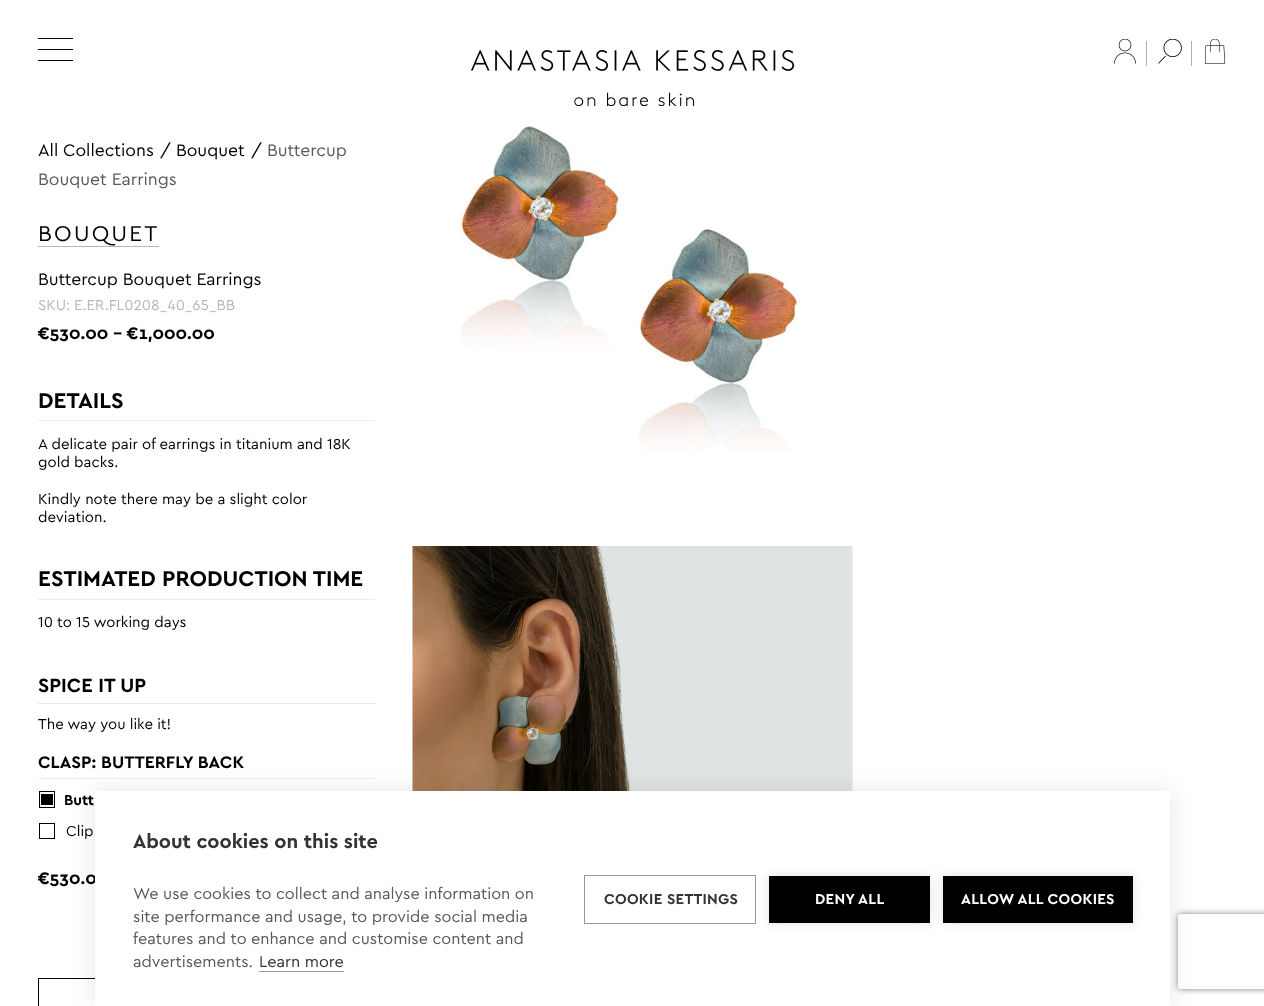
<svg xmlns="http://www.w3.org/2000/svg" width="1264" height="1006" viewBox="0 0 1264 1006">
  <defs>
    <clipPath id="clip1"><path d="M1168 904H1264V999H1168ZM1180.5 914H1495.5C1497 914 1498 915 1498 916.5V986.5C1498 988 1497 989 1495.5 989H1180.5C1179 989 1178 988 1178 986.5V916.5C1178 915 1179 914 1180.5 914Z" clip-rule="evenodd"/></clipPath>
  </defs>
  <rect width="100%" height="100%" fill="rgb(255,255,255)"/>
  <rect x="38" y="49" width="35" height="1" fill="rgb(0,0,0)"/>
  <rect x="38" y="38" width="35" height="1" fill="rgb(0,0,0)"/>
  <rect x="38" y="60" width="35" height="1" fill="rgb(0,0,0)"/>
  <image x="1114" y="39" width="22" height="25" href="pic1.png"/>
  <rect x="1146" y="41" width="1" height="25" fill="rgb(175,175,175)"/>
  <image x="1158" y="39" width="24" height="25" href="pic2.png"/>
  <rect x="1191" y="41" width="1" height="25" fill="rgb(175,175,175)"/>
  <image x="1204" y="39" width="22" height="25" href="pic3.png"/>
  <image x="471" y="50" width="324" height="56" href="pic4.png"/>
  <g font-family="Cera" font-size="17.5" fill="rgb(0,0,0)">
    <text x="38" y="156">All Collections</text>
    <text x="160" y="156">/ Bouquet</text>
    <text x="251" y="156">/</text>
  </g>
  <g font-family="Cera" font-size="17.5" fill="rgb(89,89,89)">
    <text x="267" y="156">Buttercup</text>
    <text x="38" y="185">Bouquet Earrings</text>
  </g>
  <text x="38" y="241" font-family="Cera" font-size="22.5" letter-spacing="2.25" fill="rgb(0,0,0)">BOUQUET</text>
  <rect x="38" y="246" width="121" height="1" fill="rgb(183,183,183)"/>
  <text x="38" y="285" font-family="Cera" font-size="17.5" fill="rgb(0,0,0)">Buttercup Bouquet Earrings</text>
  <text x="38" y="310" font-family="Cera" font-size="15" fill="rgb(183,183,183)">SKU:</text>
  <text x="74" y="310" font-family="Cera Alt" font-size="15" fill="rgb(183,183,183)">E.ER.FL0208_40_65_BB</text>
  <text x="38" y="339" font-family="'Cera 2'" font-size="17.5" fill="rgb(0,0,0)">€530.00 – €1,000.00</text>
  <rect x="38" y="420" width="337" height="1" fill="rgb(237,237,237)"/>
  <text x="38" y="408" font-family="'Cera 2'" font-size="22.5" fill="rgb(0,0,0)">DETAILS</text>
  <text x="38" y="449" font-family="Cera Alt" font-size="15" fill="rgb(0,0,0)">A delicate pair of earrings in titanium and 18K</text>
  <g font-family="Cera" font-size="15" fill="rgb(0,0,0)">
    <text x="38" y="467">gold backs.</text>
    <text>
      <tspan x="38" y="504">Kindly note there may be a slight color</tspan>
      <tspan x="38" y="522">deviation.</tspan>
    </text>
  </g>
  <rect x="38" y="599" width="337" height="1" fill="rgb(237,237,237)"/>
  <text x="38" y="586" font-family="'Cera 2'" font-size="22.5" fill="rgb(0,0,0)">ESTIMATED PRODUCTION TIME</text>
  <text x="38" y="627" font-family="Cera Alt" font-size="15" fill="rgb(0,0,0)">10 to 15 working days</text>
  <rect x="38" y="703" width="337" height="1" fill="rgb(230,230,230)"/>
  <text x="38" y="692" font-family="'Cera 2'" font-size="20" fill="rgb(0,0,0)">SPICE IT UP</text>
  <text x="38" y="729" font-family="Cera" font-size="15" fill="rgb(0,0,0)">The way you like it!</text>
  <rect x="38" y="778" width="337" height="1" fill="rgb(237,237,237)"/>
  <text x="38" y="768" font-family="'Cera 2'" font-size="17.5" fill="rgb(0,0,0)">CLASP: BUTTERFLY BACK</text>
  <rect x="39.5" y="791.5" width="15" height="16" fill="none" stroke="rgb(0,0,0)"/>
  <rect x="41" y="794" width="12" height="11" fill="rgb(0,0,0)"/>
  <text x="64" y="805" font-family="'Cera 2'" font-size="15" fill="rgb(0,0,0)">Butt</text>
  <rect x="39.5" y="823.5" width="15" height="15" fill="none" stroke="rgb(0,0,0)"/>
  <text x="66" y="836" font-family="Cera" font-size="15" fill="rgb(0,0,0)">Clip</text>
  <text x="38" y="884" font-family="'Cera 2'" font-size="17.5" fill="rgb(0,0,0)">€530.0</text>
  <rect x="38.5" y="978.5" width="336" height="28" fill="none" stroke="rgb(0,0,0)"/>
  <image x="459" y="124" width="342" height="327" href="pic5.png"/>
  <image x="412" y="546" width="441" height="245" href="pic6.png"/>
  <rect x="95" y="791" width="1075" height="215" fill="rgba(0,0,0,0.1)" filter="blur(12.5px)"/>
  <g clip-path="url(#clip1)">
    <rect x="1178" y="914" width="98" height="75" rx="2.5" fill="rgb(128,128,128)" filter="blur(3px)"/>
  </g>
  <rect x="95" y="791" width="1075" height="215" fill="rgb(255,255,255)"/>
  <text x="133" y="848" font-family="'Cera 2'" font-size="20" fill="rgb(51,51,51)">About cookies on this site</text>
  <g font-family="Cera" font-size="16.25" fill="rgb(89,89,89)">
    <text>
      <tspan x="133" y="899">We use cookies to collect and analyse information on</tspan>
      <tspan x="133" y="922">site performance and usage, to provide social media</tspan>
      <tspan x="133" y="944">features and to enhance and customise content and</tspan>
      <tspan x="133" y="967">advertisements.</tspan>
    </text>
  </g>
  <text x="259" y="967" font-family="Cera" font-size="16.25" fill="rgb(51,51,51)">Learn more</text>
  <rect x="259" y="971" width="85" height="1" fill="rgb(153,153,153)"/>
  <rect x="584.5" y="875.5" width="171" height="48" fill="none" stroke="rgb(153,153,153)"/>
  <text x="604" y="904" font-family="'Cera 2'" font-size="15" letter-spacing="0.25" fill="rgb(51,51,51)">COOKIE SETTINGS</text>
  <rect x="769" y="876" width="161" height="47" fill="rgba(0,0,0,0.12)" filter="blur(6px)"/>
  <rect x="769" y="876" width="161" height="47" fill="rgb(0,0,0)"/>
  <text x="815" y="904" font-family="'Cera 2'" font-size="15" letter-spacing="0.25" fill="rgb(255,255,255)">DENY ALL</text>
  <rect x="943" y="876" width="190" height="47" fill="rgba(0,0,0,0.12)" filter="blur(6px)"/>
  <rect x="943" y="876" width="190" height="47" fill="rgb(0,0,0)"/>
  <text x="961" y="904" font-family="'Cera 2'" font-size="15" letter-spacing="0.25" fill="rgb(255,255,255)">ALLOW ALL COOKIES</text>
</svg>
